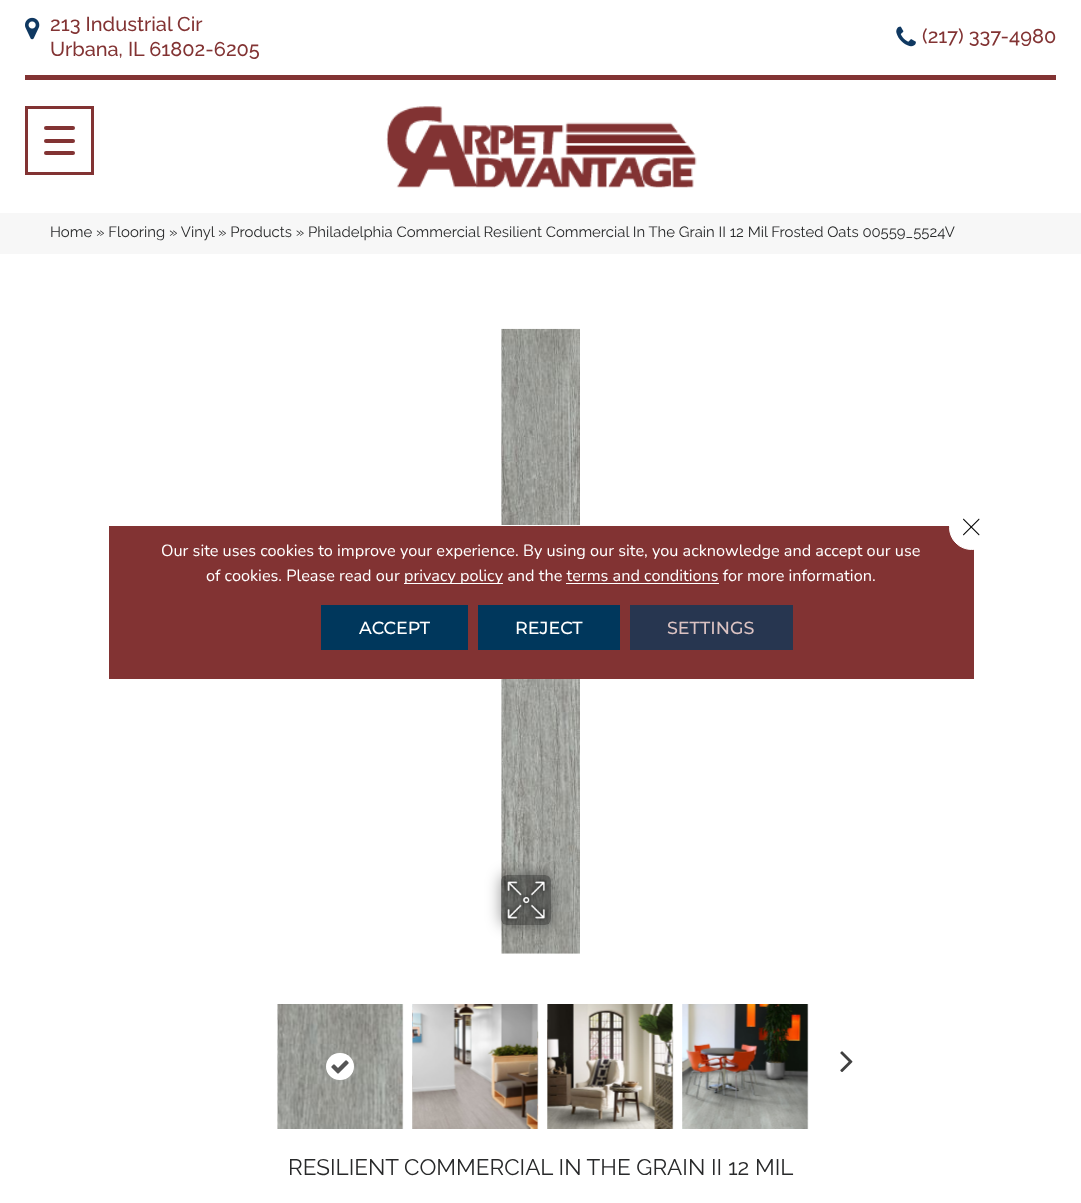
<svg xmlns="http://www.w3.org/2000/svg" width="1081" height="1203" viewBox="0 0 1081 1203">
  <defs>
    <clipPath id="clip1"><path d="M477 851H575V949H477ZM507 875H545C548.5 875 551 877.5 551 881V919C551 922.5 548.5 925 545 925H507C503.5 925 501 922.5 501 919V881C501 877.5 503.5 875 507 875Z" clip-rule="evenodd"/></clipPath>
  </defs>
  <rect width="100%" height="100%" fill="rgb(255,255,255)"/>
  <rect x="25" y="75" width="1031" height="5" fill="rgb(130,51,51)"/>
  <image x="25" y="17" width="15" height="23" href="pic1.png"/>
  <g font-family="Raleway" font-size="20" font-weight="500" fill="rgb(130,51,51)">
    <text>
      <tspan x="50" y="31">213 Industrial Cir</tspan>
      <tspan x="50" y="56">Urbana, IL 61802-6205</tspan>
    </text>
  </g>
  <image x="896" y="26" width="20" height="21" href="pic2.png"/>
  <text x="922" y="43" font-family="Raleway" font-size="20" font-weight="500" fill="rgb(130,51,51)">(217) 337-4980</text>
  <image x="386" y="106" width="311" height="82" href="pic3.png"/>
  <rect x="0" y="213" width="1081" height="41" fill="rgb(247,247,247)"/>
  <g font-family="Raleway" font-size="14.9" fill="rgb(40,41,42)">
    <text x="50" y="237">Home » Flooring » Vinyl</text>
    <text x="218" y="237">» Products » Philadelphia Commercial Resilient Commercial In The Grain II 12 Mil Frosted Oats 00559_5524V</text>
  </g>
  <image x="501" y="328" width="79" height="626" href="pic4.png"/>
  <g clip-path="url(#clip1)">
    <rect x="501" y="875" width="50" height="50" rx="6" fill="rgba(0,0,0,0.41)" filter="blur(7.5px)"/>
  </g>
  <rect x="501" y="875" width="50" height="50" rx="6" fill="rgba(0,0,0,0.4)"/>
  <image x="504" y="877" width="45" height="46" href="pic5.png"/>
  <image x="277" y="1004" width="127" height="125" href="pic6.png"/>
  <image x="278" y="1004" width="125" height="125" href="pic7.png"/>
  <rect x="326" y="1053" width="28" height="27" rx="13.5" fill="rgb(255,255,255)"/>
  <image x="331" y="1060" width="18" height="14" href="pic8.png"/>
  <image x="412" y="1004" width="127" height="125" href="pic9.png"/>
  <image x="412" y="1004" width="126" height="125" href="pic10.png"/>
  <image x="547" y="1004" width="127" height="125" href="pic11.png"/>
  <image x="547" y="1004" width="126" height="125" href="pic12.png"/>
  <image x="682" y="1004" width="127" height="125" href="pic13.png"/>
  <image x="682" y="1004" width="126" height="125" href="pic14.png"/>
  <image x="840" y="1051" width="13" height="21" href="pic15.png"/>
  <text x="288" y="1175" font-family="Raleway" font-size="22.5" fill="rgb(40,41,42)">RESILIENT COMMERCIAL IN THE GRAIN II 12 MIL</text>
  <rect x="26.5" y="107.5" width="66" height="66" fill="none" stroke="rgb(130,51,51)" stroke-width="3"/>
  <rect x="44" y="139" width="31" height="4" rx="2" fill="rgb(130,51,51)"/>
  <rect x="44" y="126" width="31" height="4" rx="2" fill="rgb(130,51,51)"/>
  <rect x="44" y="151" width="31" height="4" rx="2" fill="rgb(130,51,51)"/>
  <rect x="109" y="526" width="865" height="153" fill="rgb(130,51,51)"/>
  <rect x="501" y="525" width="79" height="1" fill="rgb(255,255,255)"/>
  <g font-family="Nunito" font-size="16.25" fill="rgb(255,255,255)">
    <text x="161" y="556">Our site uses cookies to improve your experience. By using our site, you acknowledge and accept our use</text>
    <text x="206" y="581">of cookies. Please read our</text>
  </g>
  <rect x="404" y="583" width="99" height="1" fill="rgb(255,255,255)"/>
  <text x="404" y="581" font-family="Nunito" font-size="16.25" fill="rgb(255,255,255)">privacy policy and the terms and conditions for more information.</text>
  <rect x="566" y="583" width="153" height="1" fill="rgb(255,255,255)"/>
  <circle cx="971.5" cy="527.5" r="22" fill="rgb(255,255,255)" stroke="rgb(255,255,255)"/>
  <path d="M979 518.5L979.5 519.5L963.5 535.5L963 534.5Z" fill="rgb(0,0,0)"/>
  <path d="M963 519.5L963.5 518.5L979.5 534.5L979 535.5Z" fill="rgb(0,0,0)"/>
  <rect x="321" y="605" width="147" height="45" fill="rgb(0,55,92)"/>
  <text x="359" y="634" font-family="Montserrat" font-size="17.5" font-weight="500" fill="rgb(255,255,255)">ACCEPT</text>
  <rect x="478" y="605" width="142" height="45" fill="rgb(0,55,92)"/>
  <text x="515" y="634" font-family="Montserrat" font-size="17.5" font-weight="500" fill="rgb(255,255,255)">REJECT</text>
  <rect x="630" y="605" width="163" height="45" fill="rgb(39,54,80)"/>
  <text x="667" y="634" font-family="Montserrat" font-size="17.5" font-weight="500" fill="rgb(218,194,194)">SETTINGS</text>
</svg>
